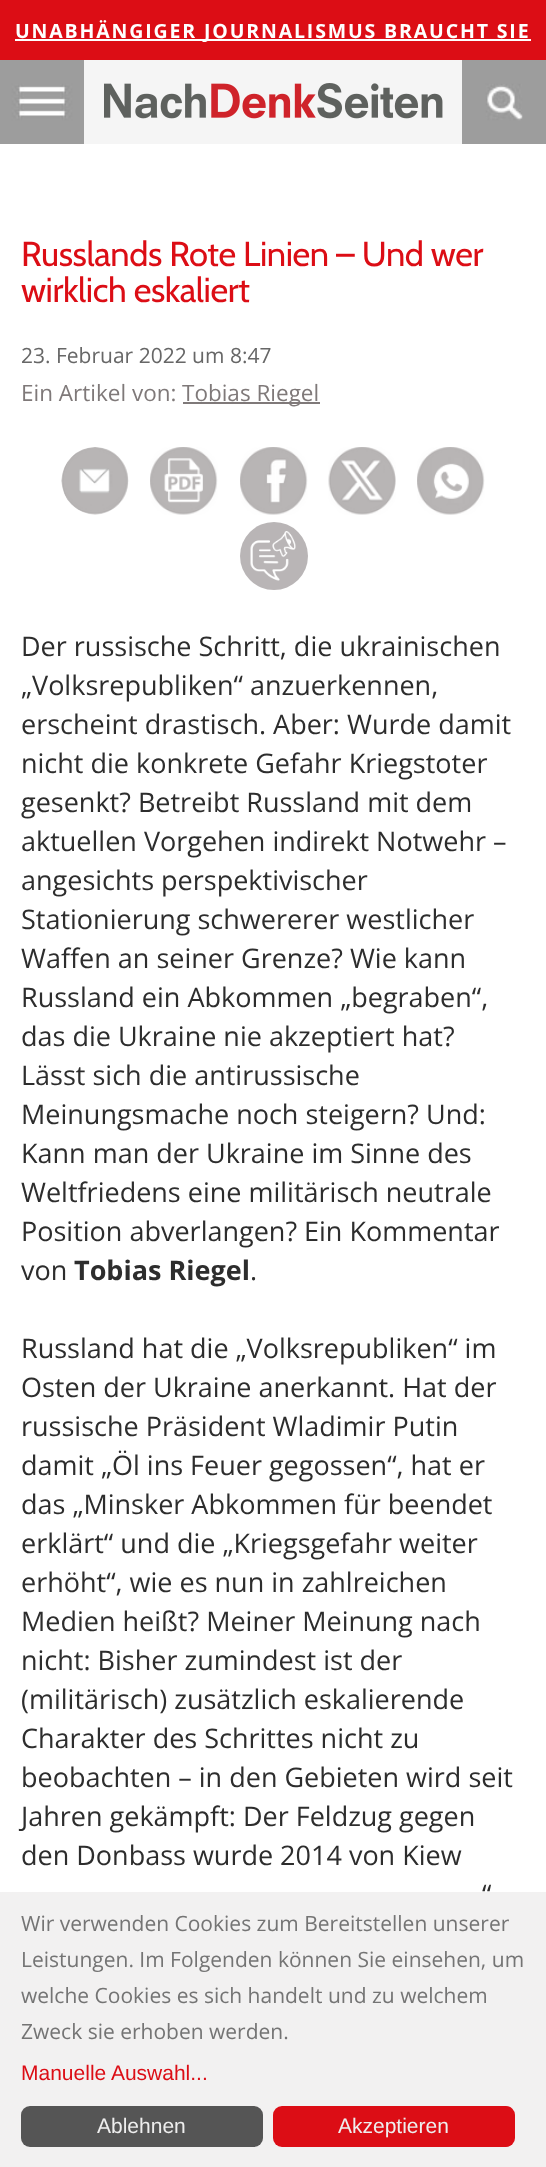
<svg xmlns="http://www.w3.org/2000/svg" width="546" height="2167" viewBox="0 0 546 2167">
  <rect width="100%" height="100%" fill="rgb(255,255,255)"/>
  <rect x="0" y="0" width="546" height="60" fill="rgb(220,13,21)"/>
  <rect x="15" y="39" width="516" height="2" fill="rgb(255,255,255)"/>
  <text x="15" y="38" font-family="Open Sans" font-size="19.5" font-weight="bold" letter-spacing="1.85" fill="rgb(255,255,255)">UNABHÄNGIGER JOURNALISMUS BRAUCHT SIE</text>
  <image x="0" y="60" width="84" height="84" href="pic1.png"/>
  <rect x="84" y="60" width="378" height="84" fill="rgb(245,245,245)"/>
  <image x="104" y="83" width="339" height="36" href="pic2.png"/>
  <image x="462" y="60" width="84" height="84" href="pic3.png"/>
  <g font-family="Cabin" font-size="34.5" letter-spacing="-0.4" fill="rgb(220,13,21)">
    <text>
      <tspan x="21" y="266">Russlands Rote Linien – Und wer</tspan>
      <tspan x="21" y="302">wirklich eskaliert</tspan>
    </text>
  </g>
  <text x="21" y="363" font-family="Open Sans" font-size="21" fill="rgb(103,103,103)">23. Februar 2022 um 8:47</text>
  <text x="21" y="401" font-family="Open Sans" font-size="22.5" fill="rgb(127,121,121)">Ein Artikel von:</text>
  <rect x="183" y="402" width="137" height="2" fill="rgb(127,121,121)"/>
  <text x="182" y="401" font-family="Open Sans" font-size="22.5" fill="rgb(127,121,121)">Tobias Riegel</text>
  <image x="61" y="447" width="68" height="68" href="pic4.png"/>
  <image x="150" y="447" width="68" height="68" href="pic5.png"/>
  <image x="240" y="447" width="68" height="68" href="pic6.png"/>
  <image x="328" y="447" width="68" height="68" href="pic7.png"/>
  <image x="417" y="447" width="68" height="68" href="pic8.png"/>
  <circle cx="274" cy="556" r="34" fill="rgb(185,181,182)"/>
  <image x="250" y="531" width="46" height="50" href="pic9.png"/>
  <g font-family="Open Sans" font-size="27" fill="rgb(45,45,45)">
    <text>
      <tspan x="21" y="656">Der russische Schritt, die ukrainischen</tspan>
      <tspan x="21" y="695">„Volksrepubliken“ anzuerkennen,</tspan>
      <tspan x="21" y="734">erscheint drastisch. Aber: Wurde damit</tspan>
      <tspan x="21" y="773">nicht die konkrete Gefahr Kriegstoter</tspan>
      <tspan x="21" y="812">gesenkt? Betreibt Russland mit dem</tspan>
      <tspan x="21" y="851">aktuellen Vorgehen indirekt Notwehr –</tspan>
      <tspan x="21" y="890">angesichts perspektivischer</tspan>
      <tspan x="21" y="929">Stationierung schwererer westlicher</tspan>
      <tspan x="21" y="968">Waffen an seiner Grenze? Wie kann</tspan>
      <tspan x="21" y="1007">Russland ein Abkommen „begraben“,</tspan>
      <tspan x="21" y="1046">das die Ukraine nie akzeptiert hat?</tspan>
      <tspan x="21" y="1085">Lässt sich die antirussische</tspan>
      <tspan x="21" y="1124">Meinungsmache noch steigern? Und:</tspan>
      <tspan x="21" y="1163">Kann man der Ukraine im Sinne des</tspan>
      <tspan x="21" y="1202">Weltfriedens eine militärisch neutrale</tspan>
      <tspan x="21" y="1241">Position abverlangen? Ein Kommentar</tspan>
      <tspan x="21" y="1280">von</tspan>
    </text>
  </g>
  <text x="74" y="1280" font-family="Open Sans" font-size="27" font-weight="bold" fill="rgb(45,45,45)">Tobias Riegel</text>
  <g font-family="Open Sans" font-size="27" fill="rgb(45,45,45)">
    <text x="250" y="1280">.</text>
    <text>
      <tspan x="21" y="1358">Russland hat die „Volksrepubliken“ im</tspan>
      <tspan x="21" y="1397">Osten der Ukraine anerkannt. Hat der</tspan>
      <tspan x="21" y="1436">russische Präsident Wladimir Putin</tspan>
      <tspan x="21" y="1475">damit „Öl ins Feuer gegossen“, hat er</tspan>
      <tspan x="21" y="1514">das „Minsker Abkommen für beendet</tspan>
      <tspan x="21" y="1553">erklärt“ und die „Kriegsgefahr weiter</tspan>
      <tspan x="21" y="1592">erhöht“, wie es nun in zahlreichen</tspan>
      <tspan x="21" y="1631">Medien heißt? Meiner Meinung nach</tspan>
      <tspan x="21" y="1670">nicht: Bisher zumindest ist der</tspan>
      <tspan x="21" y="1709">(militärisch) zusätzlich eskalierende</tspan>
      <tspan x="21" y="1748">Charakter des Schrittes nicht zu</tspan>
      <tspan x="21" y="1787">beobachten – in den Gebieten wird seit</tspan>
      <tspan x="21" y="1826">Jahren gekämpft: Der Feldzug gegen</tspan>
      <tspan x="21" y="1865">den Donbass wurde 2014 von Kiew</tspan>
    </text>
    <text x="482" y="1904">“</text>
  </g>
  <rect x="0" y="1892" width="546" height="275" fill="rgb(242,241,241)"/>
  <g font-family="Open Sans" font-size="21" fill="rgb(116,116,116)">
    <text>
      <tspan x="21" y="1931">Wir verwenden Cookies zum Bereitstellen unserer</tspan>
      <tspan x="21" y="1967">Leistungen. Im Folgenden können Sie einsehen, um</tspan>
      <tspan x="21" y="2003">welche Cookies es sich handelt und zu welchem</tspan>
      <tspan x="21" y="2039">Zweck sie erhoben werden.</tspan>
    </text>
  </g>
  <text x="21" y="2080" font-family="Liberation Sans" font-size="21" fill="rgb(220,13,21)">Manuelle Auswahl...</text>
  <rect x="21" y="2106" width="242" height="41" rx="9" fill="rgb(85,85,85)"/>
  <text x="97" y="2133" font-family="Liberation Sans" font-size="21" fill="rgb(238,238,238)">Ablehnen</text>
  <rect x="273" y="2106" width="242" height="41" rx="9" fill="rgb(220,13,21)"/>
  <text x="338" y="2133" font-family="Liberation Sans" font-size="21" fill="rgb(238,238,238)">Akzeptieren</text>
</svg>
